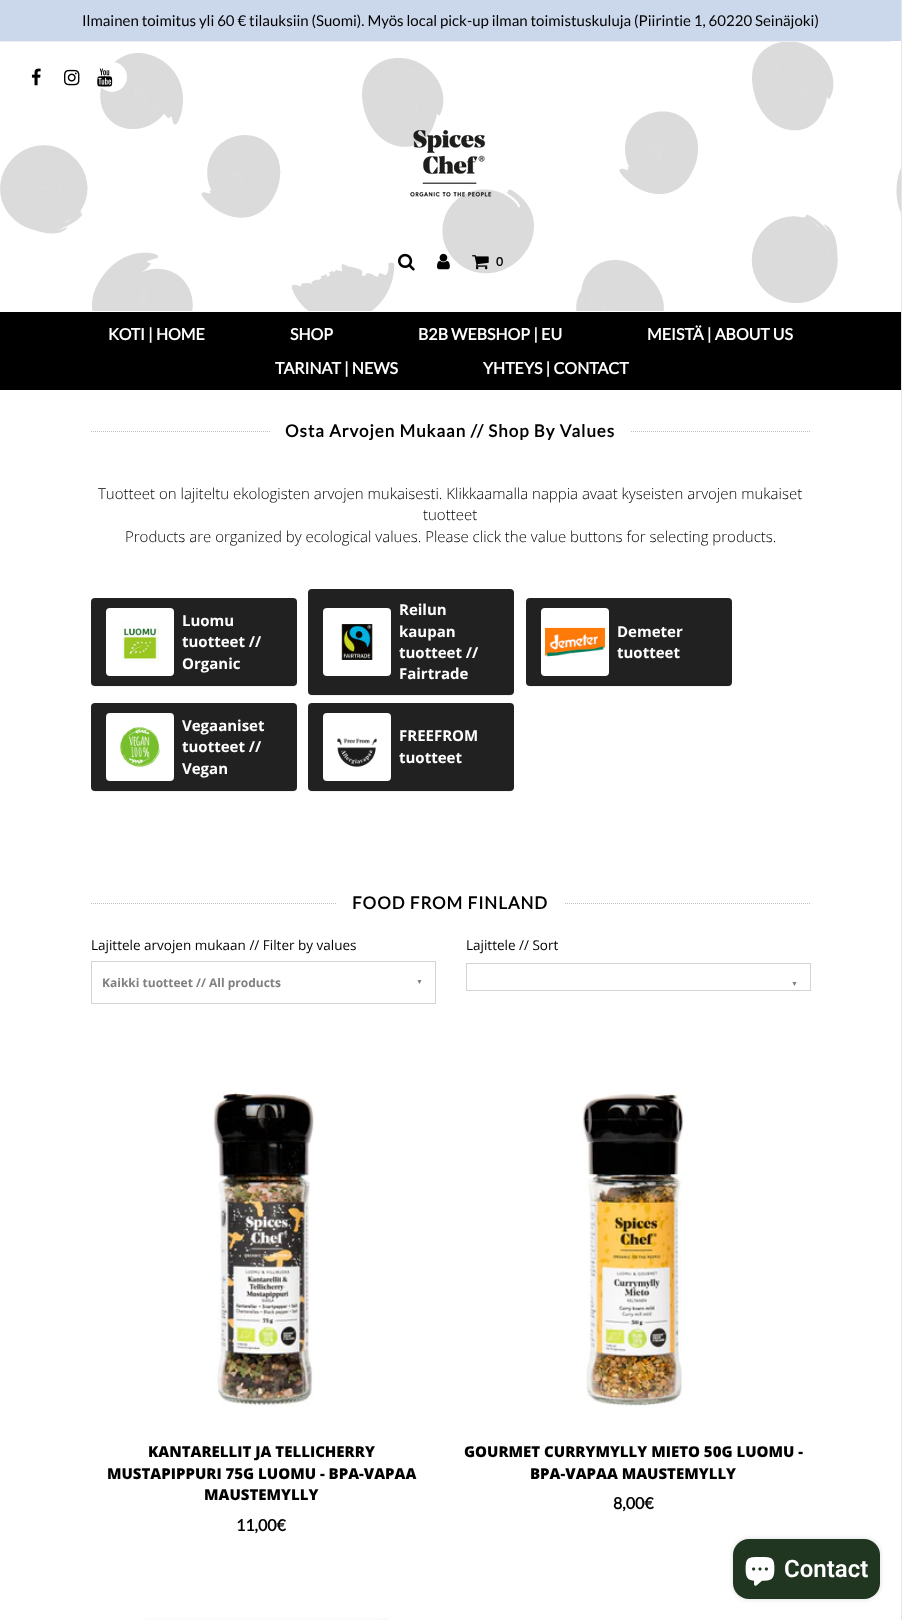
<svg xmlns="http://www.w3.org/2000/svg" width="902" height="1620" viewBox="0 0 902 1620">
  <rect width="100%" height="100%" fill="rgb(255,255,255)"/>
  <rect x="901" y="0" width="1" height="1620" fill="rgb(230,230,230)"/>
  <rect x="0" y="0" width="901" height="41" fill="rgb(203,215,234)"/>
  <text x="82" y="26" font-family="Lato" font-size="15" fill="rgb(0,0,0)">Ilmainen toimitus yli 60 € tilauksiin (Suomi). Myös local pick-up ilman toimistuskuluja (Piirintie 1, 60220 Seinäjoki)</text>
  <image x="0" y="42" width="901" height="269" href="pic1.png"/>
  <rect x="0" y="41" width="891" height="1" fill="rgb(238,238,238)"/>
  <image x="31" y="68" width="10" height="18" href="pic2.png"/>
  <image x="64" y="69" width="16" height="17" href="pic3.png"/>
  <circle cx="112" cy="77" r="15" fill="rgb(255,255,255)"/>
  <image x="97" y="68" width="16" height="19" href="pic4.png"/>
  <image x="410" y="130" width="82" height="67" href="pic5.png"/>
  <image x="398" y="253" width="17" height="18" href="pic6.png"/>
  <image x="437" y="253" width="13" height="17" href="pic7.png"/>
  <image x="472" y="255" width="17" height="15" href="pic8.png"/>
  <text x="496" y="266" font-family="Lato" font-size="12" font-weight="bold" fill="rgb(0,0,0)">0</text>
  <rect x="0" y="312" width="901" height="78" fill="rgb(0,0,0)"/>
  <g font-family="Lato" font-size="16" font-weight="bold" fill="rgb(255,255,255)">
    <text x="108" y="340">KOTI | HOME</text>
    <text x="290" y="340">SHOP</text>
    <text x="418" y="340">B2B WEBSHOP | EU</text>
    <text x="647" y="340">MEISTÄ | ABOUT US</text>
    <text x="275" y="374">TARINAT | NEWS</text>
    <text x="483" y="374">YHTEYS | CONTACT</text>
  </g>
  <path d="M91 431.5H811" fill="none" stroke="rgb(191,191,191)" stroke-dasharray="1 1"/>
  <rect x="271" y="431" width="359" height="1" fill="rgb(255,255,255)"/>
  <text x="285" y="437" font-family="Lato" font-size="17" font-weight="bold" letter-spacing="1" fill="rgb(0,0,0)">Osta Arvojen Mukaan // Shop By Values</text>
  <g font-family="Open Sans" font-size="15" font-weight="300" fill="rgb(0,0,0)">
    <text x="98" y="499">Tuotteet on lajiteltu ekologisten arvojen mukaisesti. Klikkaamalla nappia avaat kyseisten arvojen mukaiset</text>
    <text x="423" y="520">tuotteet</text>
    <text x="125" y="542">Products are organized by ecological values. Please click the value buttons for selecting products.</text>
  </g>
  <rect x="91" y="599" width="206" height="88" rx="4" fill="rgba(0,0,0,0.05)" filter="blur(0.5px)"/>
  <rect x="91" y="598" width="206" height="88" rx="4" fill="rgb(33,33,33)"/>
  <rect x="106" y="608" width="68" height="68" rx="4" fill="rgb(255,255,255)"/>
  <image x="122" y="622" width="37" height="39" href="pic9.png"/>
  <g font-family="Open Sans" font-size="15" font-weight="bold" fill="rgb(255,255,255)">
    <text>
      <tspan x="182" y="626">Luomu</tspan>
      <tspan x="182" y="647">tuotteet //</tspan>
      <tspan x="182" y="669">Organic</tspan>
    </text>
  </g>
  <rect x="308" y="590" width="206" height="106" rx="4" fill="rgba(0,0,0,0.05)" filter="blur(0.5px)"/>
  <rect x="308" y="589" width="206" height="106" rx="4" fill="rgb(33,33,33)"/>
  <rect x="323" y="608" width="68" height="68" rx="4" fill="rgb(255,255,255)"/>
  <image x="341" y="624" width="32" height="36" href="pic10.png"/>
  <g font-family="Open Sans" font-size="15" font-weight="bold" fill="rgb(255,255,255)">
    <text>
      <tspan x="399" y="615">Reilun</tspan>
      <tspan x="399" y="637">kaupan</tspan>
      <tspan x="399" y="658">tuotteet //</tspan>
      <tspan x="399" y="679">Fairtrade</tspan>
    </text>
  </g>
  <rect x="526" y="599" width="206" height="88" rx="4" fill="rgba(0,0,0,0.05)" filter="blur(0.5px)"/>
  <rect x="526" y="598" width="206" height="88" rx="4" fill="rgb(33,33,33)"/>
  <rect x="541" y="608" width="68" height="68" rx="4" fill="rgb(255,255,255)"/>
  <image x="545" y="627" width="60" height="30" href="pic11.png"/>
  <g font-family="Open Sans" font-size="15" font-weight="bold" fill="rgb(255,255,255)">
    <text>
      <tspan x="617" y="637">Demeter</tspan>
      <tspan x="617" y="658">tuotteet</tspan>
    </text>
  </g>
  <rect x="91" y="704" width="206" height="88" rx="4" fill="rgba(0,0,0,0.05)" filter="blur(0.5px)"/>
  <rect x="91" y="703" width="206" height="88" rx="4" fill="rgb(33,33,33)"/>
  <rect x="106" y="713" width="68" height="68" rx="4" fill="rgb(255,255,255)"/>
  <image x="120" y="727" width="40" height="40" href="pic12.png"/>
  <g font-family="Open Sans" font-size="15" font-weight="bold" fill="rgb(255,255,255)">
    <text>
      <tspan x="182" y="731">Vegaaniset</tspan>
      <tspan x="182" y="752">tuotteet //</tspan>
      <tspan x="182" y="774">Vegan</tspan>
    </text>
  </g>
  <rect x="308" y="704" width="206" height="88" rx="4" fill="rgba(0,0,0,0.05)" filter="blur(0.5px)"/>
  <rect x="308" y="703" width="206" height="88" rx="4" fill="rgb(33,33,33)"/>
  <rect x="323" y="713" width="68" height="68" rx="4" fill="rgb(255,255,255)"/>
  <image x="337" y="738" width="40" height="29" href="pic13.png"/>
  <g font-family="Open Sans" font-size="15" font-weight="bold" fill="rgb(255,255,255)">
    <text>
      <tspan x="399" y="741">FREEFROM</tspan>
      <tspan x="399" y="763">tuotteet</tspan>
    </text>
  </g>
  <path d="M91 903.5H811" fill="none" stroke="rgb(191,191,191)" stroke-dasharray="1 1"/>
  <rect x="337" y="903" width="227" height="1" fill="rgb(255,255,255)"/>
  <text x="352" y="909" font-family="Lato" font-size="17" font-weight="bold" letter-spacing="1" fill="rgb(0,0,0)">FOOD FROM FINLAND</text>
  <text x="91" y="950" font-family="Open Sans" font-size="13.5" fill="rgb(0,0,0)">Lajittele arvojen mukaan // Filter by values</text>
  <rect x="91.5" y="961.5" width="344" height="42" fill="none" stroke="rgb(212,212,212)"/>
  <text x="102" y="987" font-family="Open Sans" font-size="12" font-weight="bold" fill="rgb(128,128,128)">Kaikki tuotteet // All products</text>
  <text x="416" y="984" font-family="Liberation Sans" font-size="7" font-weight="bold" fill="rgb(128,128,128)">▼</text>
  <text x="466" y="950" font-family="Open Sans" font-size="13.5" fill="rgb(0,0,0)">Lajittele // Sort</text>
  <rect x="466.5" y="963.5" width="344" height="27" fill="none" stroke="rgb(212,212,212)"/>
  <text x="791" y="986" font-family="Liberation Sans" font-size="7" font-weight="bold" fill="rgb(128,128,128)">▼</text>
  <image x="213" y="1090" width="102" height="317" href="pic14.png"/>
  <g font-family="Open Sans" font-size="15" font-weight="800" fill="rgb(0,0,0)">
    <text x="148" y="1457">KANTARELLIT JA TELLICHERRY</text>
    <text x="107" y="1479">MUSTAPIPPURI 75G LUOMU - BPA-VAPAA</text>
    <text x="204" y="1500">MAUSTEMYLLY</text>
  </g>
  <text x="236" y="1531" font-family="Lato" font-size="16" font-weight="bold" fill="rgb(0,0,0)">11,00€</text>
  <image x="581" y="1090" width="104" height="317" href="pic15.png"/>
  <g font-family="Open Sans" font-size="15" font-weight="800" fill="rgb(0,0,0)">
    <text x="464" y="1457">GOURMET CURRYMYLLY MIETO 50G LUOMU -</text>
    <text x="530" y="1479">BPA-VAPAA MAUSTEMYLLY</text>
  </g>
  <text x="613" y="1509" font-family="Lato" font-size="16" font-weight="bold" fill="rgb(0,0,0)">8,00€</text>
  <image x="145" y="1618" width="244" height="2" href="pic16.png"/>
  <rect x="733" y="1539" width="147" height="60" rx="16" fill="rgba(0,0,0,0.15)" filter="blur(2.5px)"/>
  <rect x="733" y="1539" width="147" height="60" rx="16" fill="rgb(32,54,32)"/>
  <image x="745" y="1557" width="30" height="29" href="pic17.png"/>
  <text x="784" y="1577" font-family="Roboto" font-size="24" font-weight="600" fill="rgb(255,255,255)">Contact</text>
</svg>
